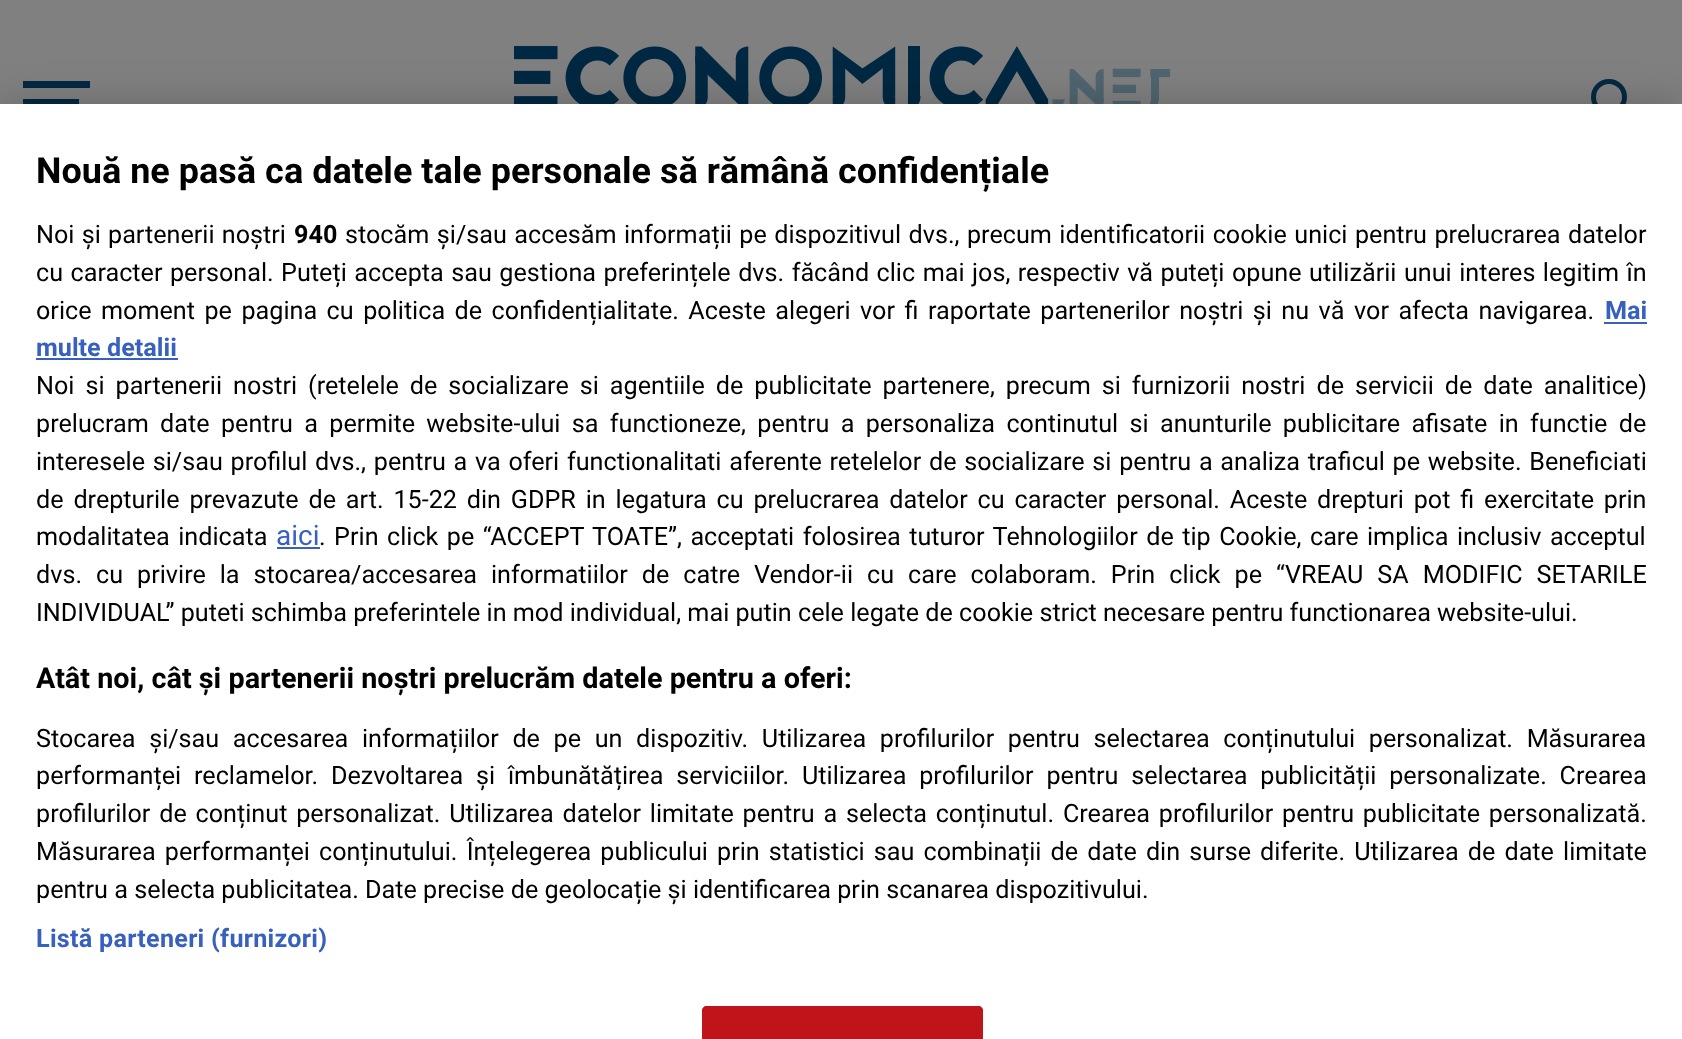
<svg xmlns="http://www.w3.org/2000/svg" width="1682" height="1039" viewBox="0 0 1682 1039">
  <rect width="100%" height="100%" fill="rgb(128,128,128)"/>
  <rect x="23" y="99" width="56" height="5" fill="rgb(3,41,66)"/>
  <rect x="23" y="81" width="67" height="7" fill="rgb(3,41,66)"/>
  <image x="514" y="46" width="656" height="58" href="pic1.png"/>
  <circle cx="1609" cy="97" r="15.5" fill="none" stroke="rgb(3,41,66)" stroke-width="5"/>
  <rect x="0" y="104" width="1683" height="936" fill="rgba(0,0,0,0.2)" filter="blur(20px)"/>
  <rect x="0" y="104" width="1682" height="935" fill="rgb(255,255,255)"/>
  <text x="36" y="183" font-family="Roboto" font-size="36" font-weight="bold" fill="rgb(0,0,0)">Nouă ne pasă ca datele tale personale să rămână confidențiale</text>
  <text x="36" y="243" word-spacing="1" font-family="Roboto" font-size="25.2" fill="rgb(0,0,0)">Noi și partenerii noștri</text>
  <text x="294" y="243" font-family="Roboto" font-size="25.2" font-weight="bold" fill="rgb(0,0,0)">940</text>
  <g font-family="Roboto" font-size="25.2" fill="rgb(0,0,0)">
    <text x="345" y="243" word-spacing="1.25">stocăm și/sau accesăm informații pe dispozitivul dvs., precum identificatorii cookie unici pentru prelucrarea datelor</text>
    <text>
      <tspan x="36" y="281" word-spacing="1.25">cu caracter personal. Puteți accepta sau gestiona preferințele dvs. făcând clic mai jos, respectiv vă puteți opune utilizării unui interes legitim în</tspan>
      <tspan x="36" y="319" word-spacing="3.25">orice moment pe pagina cu politica de confidențialitate. Aceste alegeri vor fi raportate partenerilor noștri și nu vă vor afecta navigarea.</tspan>
    </text>
  </g>
  <text x="1605" y="319" font-family="Roboto" font-size="25.2" font-weight="bold" fill="rgb(56,96,190)">Mai</text>
  <rect x="1604" y="322" width="43" height="2" fill="rgb(56,96,190)"/>
  <text x="36" y="356" font-family="Roboto" font-size="25.2" font-weight="bold" fill="rgb(56,96,190)">multe detalii</text>
  <rect x="36" y="358" width="142" height="2" fill="rgb(56,96,190)"/>
  <g font-family="Roboto" font-size="25.2" fill="rgb(0,0,0)">
    <text>
      <tspan x="36" y="394" word-spacing="4.75">Noi si partenerii nostri (retelele de socializare si agentiile de publicitate partenere, precum si furnizorii nostri de servicii de date analitice)</tspan>
      <tspan x="36" y="432" word-spacing="5.1">prelucram date pentru a permite website-ului sa functioneze, pentru a personaliza continutul si anunturile publicitare afisate in functie de</tspan>
      <tspan x="36" y="470" word-spacing="1.5">interesele si/sau profilul dvs., pentru a va oferi functionalitati aferente retelelor de socializare si pentru a analiza traficul pe website. Beneficiati</tspan>
      <tspan x="36" y="508" word-spacing="3.6">de drepturile prevazute de art. 15-22 din GDPR in legatura cu prelucrarea datelor cu caracter personal. Aceste drepturi pot fi exercitate prin</tspan>
      <tspan x="36" y="545" word-spacing="2.25">modalitatea indicata</tspan>
    </text>
  </g>
  <text x="276" y="545" font-family="Roboto" font-size="28" fill="rgb(56,96,190)">aici</text>
  <rect x="277" y="547" width="43" height="2" fill="rgb(56,96,190)"/>
  <g font-family="Roboto" font-size="25.2" fill="rgb(0,0,0)">
    <text x="319" y="545" word-spacing="2.25">. Prin click pe “ACCEPT TOATE”, acceptati folosirea tuturor Tehnologiilor de tip Cookie, care implica inclusiv acceptul</text>
    <text>
      <tspan x="36" y="583" word-spacing="7.75">dvs. cu privire la stocarea/accesarea informatiilor de catre Vendor-ii cu care colaboram. Prin click pe “VREAU SA MODIFIC SETARILE</tspan>
      <tspan x="36" y="621">INDIVIDUAL” puteti schimba preferintele in mod individual, mai putin cele legate de cookie strict necesare pentru functionarea website-ului.</tspan>
    </text>
  </g>
  <text x="36" y="688" font-family="Roboto" font-size="28.8" font-weight="bold" fill="rgb(0,0,0)">Atât noi, cât și partenerii noștri prelucrăm datele pentru a oferi:</text>
  <g font-family="Roboto" font-size="25.2" fill="rgb(0,0,0)">
    <text>
      <tspan x="36" y="747" word-spacing="7.4">Stocarea și/sau accesarea informațiilor de pe un dispozitiv. Utilizarea profilurilor pentru selectarea conținutului personalizat. Măsurarea</tspan>
      <tspan x="36" y="784" word-spacing="6.6">performanței reclamelor. Dezvoltarea și îmbunătățirea serviciilor. Utilizarea profilurilor pentru selectarea publicității personalizate. Crearea</tspan>
      <tspan x="36" y="822" word-spacing="2.6">profilurilor de conținut personalizat. Utilizarea datelor limitate pentru a selecta conținutul. Crearea profilurilor pentru publicitate personalizată.</tspan>
      <tspan x="36" y="860" word-spacing="2.9">Măsurarea performanței conținutului. Înțelegerea publicului prin statistici sau combinații de date din surse diferite. Utilizarea de date limitate</tspan>
      <tspan x="36" y="898">pentru a selecta publicitatea. Date precise de geolocație și identificarea prin scanarea dispozitivului.</tspan>
    </text>
  </g>
  <text x="36" y="947" font-family="Roboto" font-size="25.2" font-weight="bold" letter-spacing="0.25" fill="rgb(56,96,190)">Listă parteneri (furnizori)</text>
  <path d="M707 1006H978C981 1006 983 1008 983 1011V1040H702V1011C702 1008 704 1006 707 1006Z" fill="rgb(191,20,26)"/>
  <rect x="703" y="1007" width="279" height="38" rx="4" fill="none" stroke="rgb(191,20,26)" stroke-width="2"/>
</svg>
